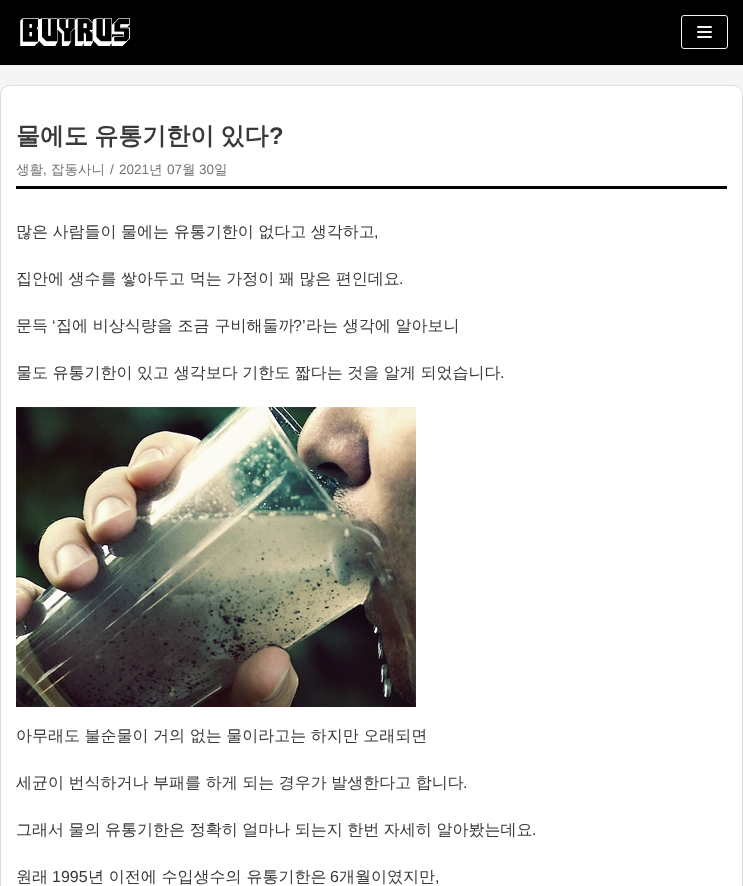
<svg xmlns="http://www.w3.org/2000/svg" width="743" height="886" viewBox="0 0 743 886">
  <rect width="100%" height="100%" fill="rgb(245,245,245)"/>
  <rect x="0" y="0" width="743" height="65" fill="rgb(0,0,0)"/>
  <image x="20" y="18" width="110" height="28" href="pic1.png"/>
  <rect x="681.5" y="15.5" width="46" height="33" rx="2.5" fill="none" stroke="rgb(245,245,245)"/>
  <rect x="697" y="26" width="15" height="2" rx="1" fill="rgb(245,245,245)"/>
  <rect x="697" y="31" width="15" height="2" rx="1" fill="rgb(245,245,245)"/>
  <rect x="697" y="36" width="15" height="2" rx="1" fill="rgb(245,245,245)"/>
  <rect x="0.5" y="85.5" width="742" height="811" rx="9.5" fill="rgb(255,255,255)" stroke="rgb(221,221,221)"/>
  <text x="16" y="144" word-spacing="-1" font-family="WenQuanYi Zen Hei" font-size="24" font-weight="bold" fill="rgb(57,57,57)">물에도 유통기한이 있다</text>
  <text x="269" y="144" font-family="Liberation Sans" font-size="24" font-weight="bold" fill="rgb(57,57,57)">?</text>
  <rect x="16" y="186" width="711" height="3" fill="rgb(0,0,0)"/>
  <text x="16" y="174" font-family="WenQuanYi Zen Hei" font-size="13.5" font-weight="500" fill="rgb(116,116,116)">생활</text>
  <text x="43" y="174" font-family="Liberation Sans" font-size="13.5" fill="rgb(116,116,116)">,</text>
  <text x="51" y="174" font-family="WenQuanYi Zen Hei" font-size="13.5" font-weight="500" fill="rgb(116,116,116)">잡동사니</text>
  <g font-family="Liberation Sans" font-size="13.5" fill="rgb(116,116,116)">
    <text x="110" y="174">/</text>
    <text x="119" y="174">2021</text>
  </g>
  <text x="149" y="174" font-family="WenQuanYi Zen Hei" font-size="13.5" font-weight="500" fill="rgb(116,116,116)">년</text>
  <text x="167" y="174" font-family="Liberation Sans" font-size="13.5" fill="rgb(116,116,116)">07</text>
  <text x="182" y="174" font-family="WenQuanYi Zen Hei" font-size="13.5" font-weight="500" fill="rgb(116,116,116)">월</text>
  <text x="199" y="174" font-family="Liberation Sans" font-size="13.5" fill="rgb(116,116,116)">30</text>
  <text x="214" y="174" font-family="WenQuanYi Zen Hei" font-size="13.5" font-weight="500" fill="rgb(116,116,116)">일</text>
  <text x="16" y="237" word-spacing="-0.25" font-family="WenQuanYi Zen Hei" font-size="16" font-weight="500" fill="rgb(57,57,57)">많은 사람들이 물에는 유통기한이 없다고 생각하고</text>
  <text x="374" y="237" font-family="Liberation Sans" font-size="16" fill="rgb(57,57,57)">,</text>
  <text x="16" y="284" word-spacing="-0.25" font-family="WenQuanYi Zen Hei" font-size="16" font-weight="500" fill="rgb(57,57,57)">집안에 생수를 쌓아두고 먹는 가정이 꽤 많은 편인데요</text>
  <text x="399" y="284" font-family="Liberation Sans" font-size="16" fill="rgb(57,57,57)">.</text>
  <text x="16" y="331" font-family="WenQuanYi Zen Hei" font-size="16" font-weight="500" fill="rgb(57,57,57)">문득</text>
  <text x="52" y="331" font-family="Liberation Sans" font-size="16" fill="rgb(57,57,57)">‘</text>
  <text x="56" y="331" font-family="WenQuanYi Zen Hei" font-size="16" font-weight="500" fill="rgb(57,57,57)">집에 비상식량을 조금 구비해둘까</text>
  <text x="293" y="331" font-family="Liberation Sans" font-size="16" fill="rgb(57,57,57)">?’</text>
  <g font-family="WenQuanYi Zen Hei" font-size="16" font-weight="500" fill="rgb(57,57,57)">
    <text x="306" y="331">라는 생각에 알아보니</text>
    <text x="16" y="378" word-spacing="-0.25">물도 유통기한이 있고 생각보다 기한도 짧다는 것을 알게 되었습니다</text>
  </g>
  <text x="500" y="378" font-family="Liberation Sans" font-size="16" fill="rgb(57,57,57)">.</text>
  <image x="16" y="407" width="400" height="300" href="pic2.png"/>
  <g font-family="WenQuanYi Zen Hei" font-size="16" font-weight="500" fill="rgb(57,57,57)">
    <text x="16" y="741" word-spacing="-0.25">아무래도 불순물이 거의 없는 물이라고는 하지만 오래되면</text>
    <text x="16" y="788" word-spacing="-0.25">세균이 번식하거나 부패를 하게 되는 경우가 발생한다고 합니다</text>
  </g>
  <text x="463" y="788" font-family="Liberation Sans" font-size="16" fill="rgb(57,57,57)">.</text>
  <text x="16" y="835" word-spacing="-0.25" font-family="WenQuanYi Zen Hei" font-size="16" font-weight="500" fill="rgb(57,57,57)">그래서 물의 유통기한은 정확히 얼마나 되는지 한번 자세히 알아봤는데요</text>
  <text x="532" y="835" font-family="Liberation Sans" font-size="16" fill="rgb(57,57,57)">.</text>
  <text x="16" y="882" font-family="WenQuanYi Zen Hei" font-size="16" font-weight="500" fill="rgb(57,57,57)">원래</text>
  <text x="52" y="882" font-family="Liberation Sans" font-size="16" fill="rgb(57,57,57)">1995</text>
  <text x="88" y="882" font-family="WenQuanYi Zen Hei" font-size="16" font-weight="500" fill="rgb(57,57,57)">년 이전에 수입생수의 유통기한은</text>
  <text x="330" y="882" font-family="Liberation Sans" font-size="16" fill="rgb(57,57,57)">6</text>
  <text x="339" y="882" font-family="WenQuanYi Zen Hei" font-size="16" font-weight="500" fill="rgb(57,57,57)">개월이였지만</text>
  <text x="435" y="882" font-family="Liberation Sans" font-size="16" fill="rgb(57,57,57)">,</text>
</svg>
